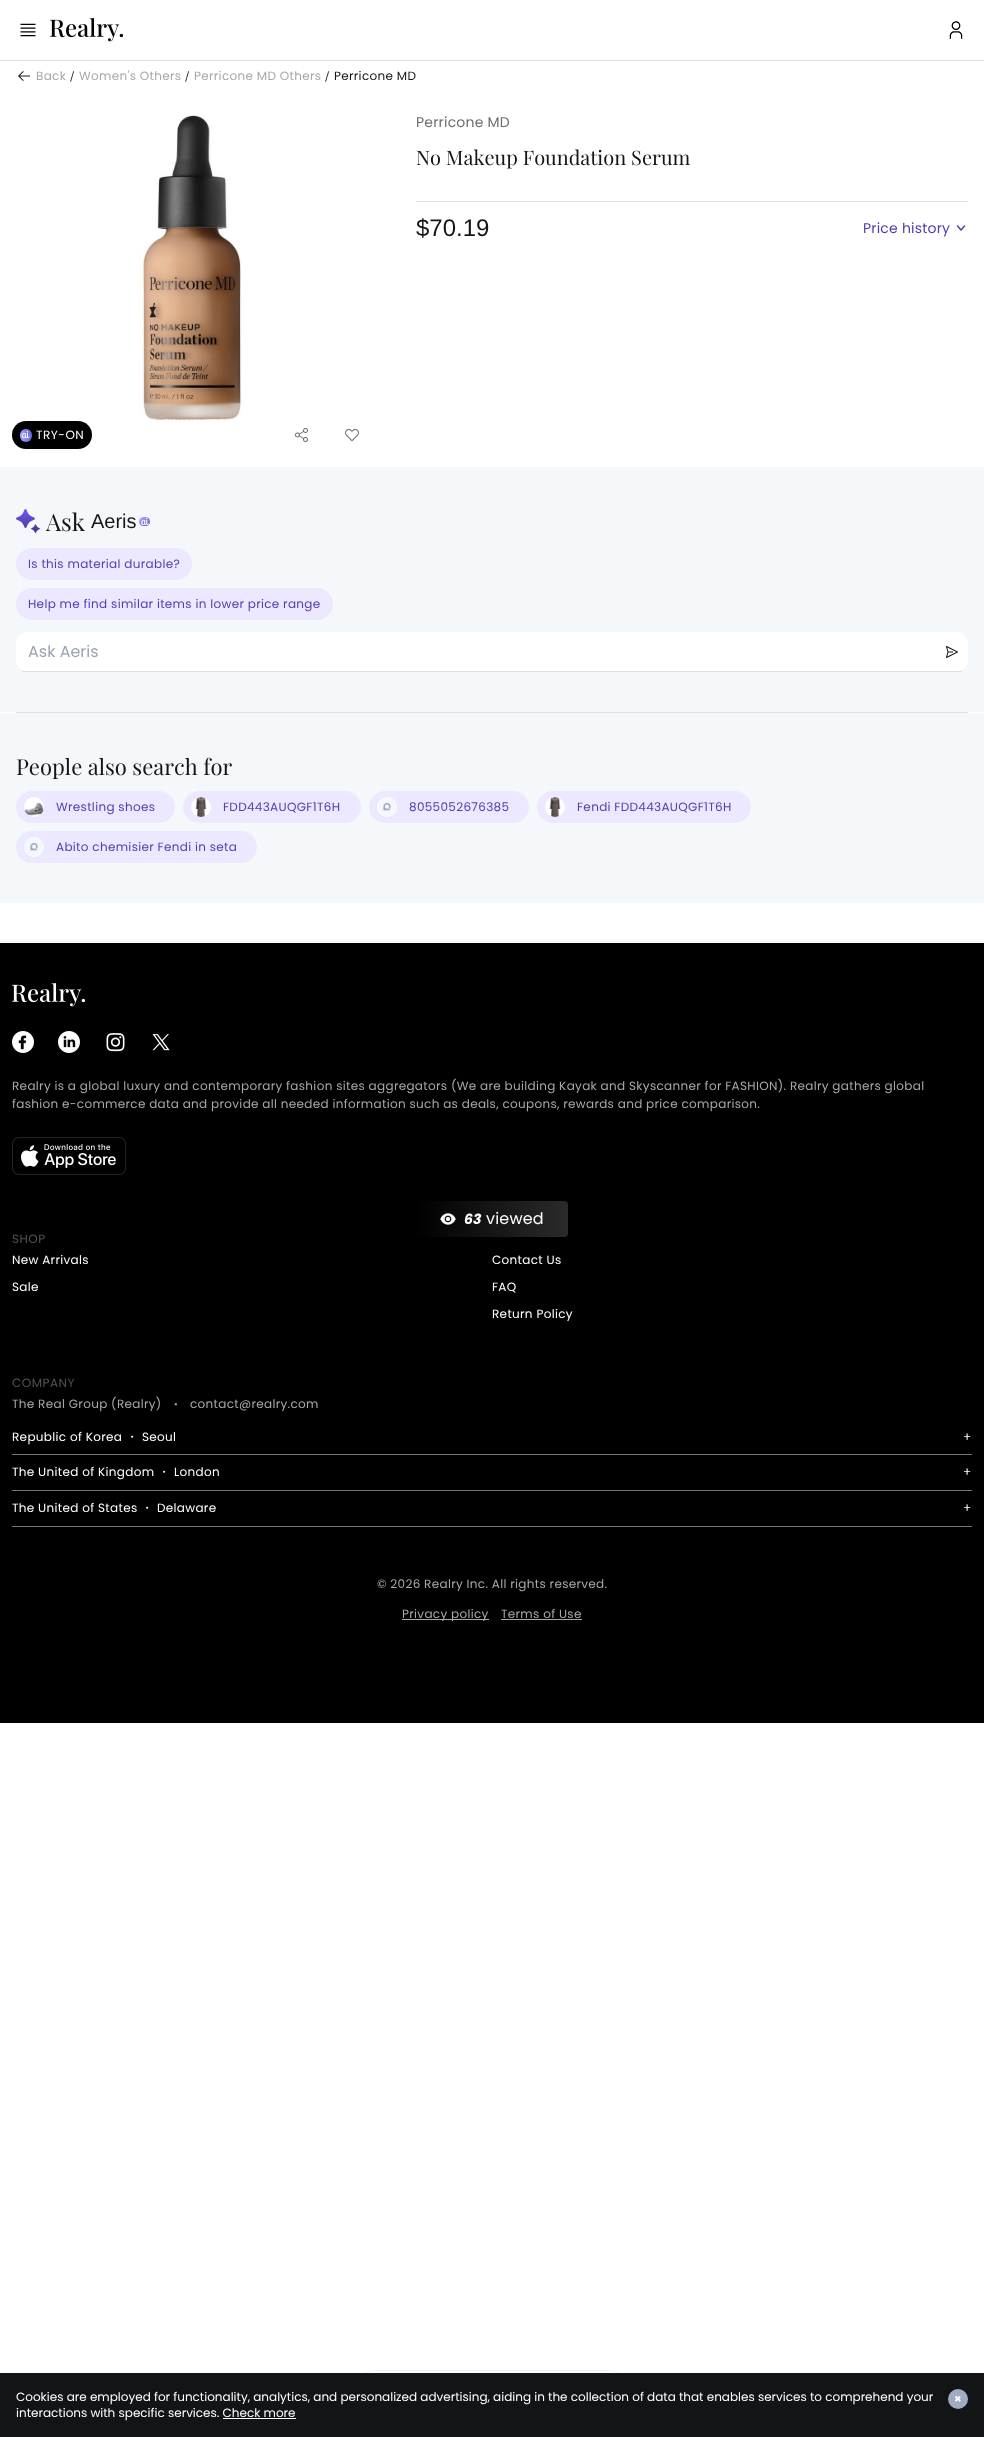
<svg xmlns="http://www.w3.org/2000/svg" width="984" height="2437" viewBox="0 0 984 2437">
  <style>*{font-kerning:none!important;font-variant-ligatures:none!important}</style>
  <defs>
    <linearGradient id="g1" gradientUnits="userSpaceOnUse" x1="20" y1="436" x2="32" y2="436"><stop offset="0" stop-color="rgb(177,160,255)"/><stop offset="1" stop-color="rgb(95,105,214)"/></linearGradient>
    <linearGradient id="g2" gradientUnits="userSpaceOnUse" x1="140" y1="516" x2="149" y2="527"><stop offset="0" stop-color="rgb(195,183,252)"/><stop offset="1" stop-color="rgb(93,70,201)"/></linearGradient>
    <linearGradient id="g3" gradientUnits="userSpaceOnUse" x1="416" y1="1219" x2="568" y2="1219"><stop offset="0" stop-color="rgb(0,0,0)" stop-opacity="0.75"/><stop offset="1" stop-color="rgb(57,57,57)" stop-opacity="0.75"/></linearGradient>
  </defs>
  <rect width="100%" height="100%" fill="rgb(255,255,255)"/>
  <rect x="0" y="60" width="984" height="1" fill="rgb(224,224,224)"/>
  <image x="20" y="23" width="16" height="14" href="pic1.png"/>
  <image x="50" y="18" width="74" height="24" href="pic2.png"/>
  <image x="949" y="21" width="14" height="18" href="pic3.png"/>
  <image x="18" y="71" width="12" height="10" href="pic4.png"/>
  <text x="36" y="80" font-family="Poppins" font-size="12" letter-spacing="0.32" fill="rgb(168,168,168)">Back</text>
  <text x="70" y="80" font-family="IBM Plex Sans" font-size="12" letter-spacing="0.2" fill="rgb(22,22,22)">/</text>
  <text x="79" y="80" font-family="Poppins" font-size="12" letter-spacing="0.32" fill="rgb(168,168,168)">Women's Others</text>
  <text x="185" y="80" font-family="IBM Plex Sans" font-size="12" letter-spacing="0.2" fill="rgb(22,22,22)">/</text>
  <text x="194" y="80" font-family="Poppins" font-size="12" letter-spacing="0.32" fill="rgb(168,168,168)">Perricone MD Others</text>
  <text x="325" y="80" font-family="IBM Plex Sans" font-size="12" letter-spacing="0.2" fill="rgb(22,22,22)">/</text>
  <text x="334" y="80" font-family="Poppins" font-size="12" letter-spacing="0.32" fill="rgb(22,22,22)">Perricone MD</text>
  <text x="416" y="127" font-family="Poppins" font-size="14" letter-spacing="0.2" fill="rgb(111,111,111)">Perricone MD</text>
  <text x="416" y="165" font-family="Playfair Display" font-size="20" fill="rgb(22,22,22)">No Makeup Foundation Serum</text>
  <rect x="416" y="201" width="552" height="1" fill="rgb(224,224,224)"/>
  <text x="416" y="236" font-family="Liberation Sans" font-size="24" fill="rgb(22,22,22)">$70.19</text>
  <text x="863" y="233" font-family="Poppins" font-size="14" letter-spacing="0.2" fill="rgb(83,62,178)">Price history</text>
  <path d="M957.5 226L961 230L964.5 226" fill="none" stroke="rgb(83,62,178)" stroke-width="1.5" stroke-linecap="round" stroke-linejoin="round"/>
  <image x="139" y="115" width="104" height="307" href="pic5.png"/>
  <rect x="12" y="421" width="80" height="28" rx="14" fill="rgb(0,0,0)"/>
  <rect x="20" y="429" width="12" height="13" rx="6" fill="url(#g1)"/>
  <image x="22" y="431" width="8" height="8" href="pic6.png"/>
  <text x="36" y="439" font-family="Poppins" font-size="12" letter-spacing="0.5" fill="rgb(255,255,255)">TRY-ON</text>
  <image x="295" y="428" width="13" height="14" href="pic7.png"/>
  <image x="345" y="429" width="14" height="13" href="pic8.png"/>
  <rect x="0" y="467" width="984" height="245" fill="rgb(245,248,250)"/>
  <image x="16" y="509" width="24" height="24" href="pic9.png"/>
  <text x="46" y="531" font-family="Playfair Display" font-size="24" fill="rgb(22,22,22)">Ask</text>
  <text x="91" y="528" font-family="Liberation Sans" font-size="20" fill="rgb(22,22,22)">Aeris</text>
  <rect x="139" y="517" width="11" height="9" rx="4.5" fill="url(#g2)"/>
  <text x="141" y="525" font-family="Lobster Two" font-size="10" fill="rgb(255,255,255)">ai</text>
  <rect x="16" y="548" width="176" height="32" rx="16" fill="rgb(236,232,255)"/>
  <text x="28" y="568" font-family="Poppins" font-size="12" letter-spacing="0.32" fill="rgb(83,62,178)">Is this material durable?</text>
  <rect x="16" y="588" width="317" height="32" rx="16" fill="rgb(236,232,255)"/>
  <text x="28" y="608" font-family="Poppins" font-size="12" letter-spacing="0.32" fill="rgb(83,62,178)">Help me find similar items in lower price range</text>
  <path d="M28 632H956C963 632 968 637 968 644V660C968 666 963 671 956 671H28C21 671 16 666 16 660V644C16 637 21 632 28 632Z" fill="rgb(255,255,255)"/>
  <rect x="22" y="671" width="940" height="1" fill="rgb(224,224,224)"/>
  <text x="28" y="657" font-family="Poppins" font-size="16" fill="rgb(156,163,175)">Ask Aeris</text>
  <image x="946" y="646" width="12" height="12" href="pic10.png"/>
  <rect x="16" y="712" width="952" height="1" fill="rgb(224,224,224)"/>
  <rect x="0" y="713" width="984" height="190" fill="rgb(245,248,250)"/>
  <text x="16" y="775" font-family="Playfair Display" font-size="22" fill="rgb(22,22,22)">People also search for</text>
  <rect x="16" y="791" width="159" height="32" rx="16" fill="rgb(236,232,255)"/>
  <image x="24" y="797" width="20" height="20" href="pic11.png"/>
  <text x="56" y="811" font-family="Poppins" font-size="12" letter-spacing="0.32" fill="rgb(83,62,178)">Wrestling shoes</text>
  <rect x="183" y="791" width="178" height="32" rx="16" fill="rgb(236,232,255)"/>
  <image x="191" y="797" width="20" height="20" href="pic12.png"/>
  <text x="223" y="811" font-family="Poppins" font-size="12" letter-spacing="0.32" fill="rgb(83,62,178)">FDD443AUQGF1T6H</text>
  <rect x="369" y="791" width="160" height="32" rx="16" fill="rgb(236,232,255)"/>
  <image x="377" y="797" width="20" height="20" href="pic13.png"/>
  <text x="409" y="811" font-family="Poppins" font-size="12" letter-spacing="0.32" fill="rgb(83,62,178)">8055052676385</text>
  <rect x="537" y="791" width="214" height="32" rx="16" fill="rgb(236,232,255)"/>
  <image x="545" y="797" width="20" height="20" href="pic12.png"/>
  <text x="577" y="811" font-family="Poppins" font-size="12" letter-spacing="0.32" fill="rgb(83,62,178)">Fendi FDD443AUQGF1T6H</text>
  <rect x="16" y="831" width="241" height="32" rx="16" fill="rgb(236,232,255)"/>
  <image x="24" y="837" width="20" height="20" href="pic13.png"/>
  <text x="56" y="851" font-family="Poppins" font-size="12" letter-spacing="0.32" fill="rgb(83,62,178)">Abito chemisier Fendi in seta</text>
  <rect x="0" y="943" width="984" height="780" fill="rgb(0,0,0)"/>
  <rect x="416" y="1201" width="152" height="36" rx="4" fill="url(#g3)"/>
  <image x="440" y="1213" width="16" height="12" href="pic14.png"/>
  <text x="464" y="1224" font-family="Poppins" font-size="14" font-weight="bold" font-style="italic" fill="rgb(255,255,255)">63</text>
  <text x="486" y="1224" font-family="Poppins" font-size="16" letter-spacing="0.2" fill="rgb(255,255,255)">viewed</text>
  <image x="12" y="983" width="74" height="24" href="pic15.png"/>
  <image x="12" y="1031" width="22" height="22" href="pic16.png"/>
  <image x="58" y="1031" width="22" height="22" href="pic17.png"/>
  <image x="106" y="1033" width="19" height="19" href="pic18.png"/>
  <image x="152" y="1034" width="18" height="17" href="pic19.png"/>
  <g font-family="Poppins" font-size="12" letter-spacing="0.32" fill="rgb(168,168,168)">
    <text>
      <tspan x="12" y="1090">Realry is a global luxury and contemporary fashion sites aggregators (We are building Kayak and Skyscanner for FASHION). Realry gathers global</tspan>
      <tspan x="12" y="1108">fashion e-commerce data and provide all needed information such as deals, coupons, rewards and price comparison.</tspan>
    </text>
  </g>
  <image x="12" y="1137" width="114" height="38" href="pic20.png"/>
  <text x="12" y="1243" font-family="Poppins" font-size="12" letter-spacing="0.5" fill="rgb(82,82,82)">SHOP</text>
  <g font-family="Poppins" font-size="12" letter-spacing="0.32" fill="rgb(255,255,255)">
    <text x="12" y="1264">New Arrivals</text>
    <text x="12" y="1291">Sale</text>
    <text x="492" y="1264">Contact Us</text>
    <text x="492" y="1291">FAQ</text>
    <text x="492" y="1318">Return Policy</text>
  </g>
  <text x="12" y="1387" font-family="Poppins" font-size="12" letter-spacing="0.5" fill="rgb(82,82,82)">COMPANY</text>
  <text x="12" y="1408" font-family="Poppins" font-size="12" letter-spacing="0.32" fill="rgb(168,168,168)">The Real Group (Realry)</text>
  <text x="174" y="1408" font-family="Poppins" font-size="12" font-weight="bold" letter-spacing="0.32" fill="rgb(168,168,168)">·</text>
  <text x="190" y="1408" font-family="Poppins" font-size="12" letter-spacing="0.32" fill="rgb(168,168,168)">contact@realry.com</text>
  <rect x="12" y="1454" width="960" height="1" fill="rgb(115,116,118)"/>
  <text x="12" y="1441" font-family="Poppins" font-size="12" letter-spacing="0.32" fill="rgb(255,255,255)">Republic of Korea</text>
  <text x="126" y="1441" font-family="WenQuanYi Zen Hei" font-size="12" font-weight="500" letter-spacing="0.32" fill="rgb(255,255,255)">・</text>
  <g font-family="Poppins" font-size="12" letter-spacing="0.32" fill="rgb(255,255,255)">
    <text x="142" y="1441">Seoul</text>
    <text x="963" y="1441">+</text>
  </g>
  <rect x="12" y="1490" width="960" height="1" fill="rgb(115,116,118)"/>
  <text x="12" y="1476" font-family="Poppins" font-size="12" letter-spacing="0.32" fill="rgb(255,255,255)">The United of Kingdom</text>
  <text x="158" y="1476" font-family="WenQuanYi Zen Hei" font-size="12" font-weight="500" letter-spacing="0.32" fill="rgb(255,255,255)">・</text>
  <g font-family="Poppins" font-size="12" letter-spacing="0.32" fill="rgb(255,255,255)">
    <text x="174" y="1476">London</text>
    <text x="963" y="1476">+</text>
  </g>
  <rect x="12" y="1526" width="960" height="1" fill="rgb(115,116,118)"/>
  <text x="12" y="1512" font-family="Poppins" font-size="12" letter-spacing="0.32" fill="rgb(255,255,255)">The United of States</text>
  <text x="141" y="1512" font-family="WenQuanYi Zen Hei" font-size="12" font-weight="500" letter-spacing="0.32" fill="rgb(255,255,255)">・</text>
  <g font-family="Poppins" font-size="12" letter-spacing="0.32" fill="rgb(255,255,255)">
    <text x="157" y="1512">Delaware</text>
    <text x="963" y="1512">+</text>
  </g>
  <text x="377" y="1588" font-family="Poppins" font-size="12" letter-spacing="0.32" fill="rgb(168,168,168)">© 2026 Realry Inc. All rights reserved.</text>
  <rect x="402" y="1619" width="87" height="1" fill="rgb(168,168,168)"/>
  <g font-family="Poppins" font-size="12" letter-spacing="0.32" fill="rgb(168,168,168)">
    <text x="402" y="1618">Privacy policy</text>
    <text x="501" y="1618">Terms of Use</text>
  </g>
  <rect x="501" y="1619" width="81" height="1" fill="rgb(168,168,168)"/>
  <rect x="349.5" y="2370.5" width="285" height="54" rx="27" fill="none" stroke="rgba(229,231,235,0.5)"/>
  <rect x="0" y="2373" width="984" height="64" fill="rgb(19,20,22)"/>
  <text x="16" y="2401" font-family="Poppins" font-size="12" fill="rgb(255,255,255)">Cookies are employed for functionality, analytics, and personalized advertising, aiding in the collection of data that enables services to comprehend your</text>
  <circle cx="958" cy="2399" r="10" fill="rgb(160,172,193)"/>
  <text x="954" y="2403" font-family="Poppins" font-size="12" font-weight="bold" fill="rgb(255,255,255)">×</text>
  <text x="16" y="2417" font-family="Poppins" font-size="12" fill="rgb(255,255,255)">interactions with specific services. Check more</text>
  <rect x="223" y="2418" width="73" height="1" fill="rgb(255,255,255)"/>
</svg>
